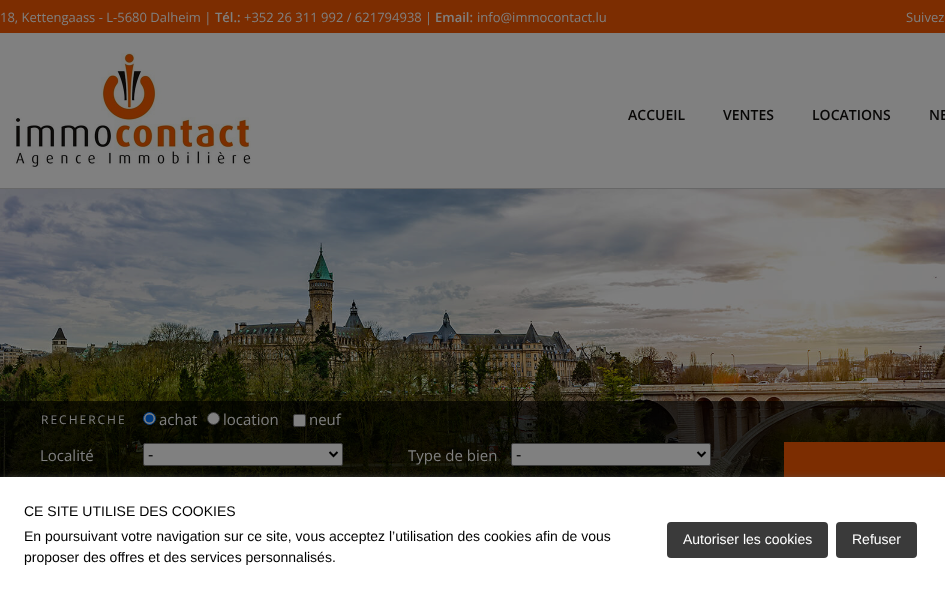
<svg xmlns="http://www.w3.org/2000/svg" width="945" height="602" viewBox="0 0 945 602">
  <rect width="100%" height="100%" fill="rgb(128,128,128)"/>
  <rect x="0" y="0" width="945" height="33" fill="rgb(124,45,1)"/>
  <rect x="0" y="188" width="945" height="1" fill="rgb(103,103,103)"/>
  <text x="0" y="22" font-family="Open Sans" font-size="13" fill="rgb(128,128,128)">18, Kettengaass - L-5680 Dalheim |</text>
  <text x="215" y="22" font-family="Open Sans" font-size="13" font-weight="600" fill="rgb(128,128,128)">Tél.:</text>
  <text x="244" y="22" font-family="Open Sans" font-size="13" fill="rgb(128,128,128)">+352 26 311 992 / 621794938 |</text>
  <text x="435" y="22" font-family="Open Sans" font-size="13" font-weight="600" fill="rgb(128,128,128)">Email:</text>
  <g font-family="Open Sans" font-size="13" fill="rgb(128,128,128)">
    <text x="477" y="22">info@immocontact.lu</text>
    <text x="906" y="22">Suivez</text>
  </g>
  <image x="14" y="53" width="237" height="114" href="pic1.png"/>
  <g font-family="Open Sans" font-size="14" font-weight="600" fill="rgb(8,7,6)">
    <text x="628" y="120">ACCUEIL</text>
    <text x="723" y="120">VENTES</text>
    <text x="812" y="120">LOCATIONS</text>
    <text x="929" y="120">NE</text>
  </g>
  <image x="0" y="189" width="945" height="288" href="pic2.png"/>
  <rect x="0" y="401" width="945" height="76" fill="rgba(0,0,0,0.65)"/>
  <circle cx="149.5" cy="418.5" r="6" fill="rgb(128,128,128)" stroke="rgb(0,59,128)"/>
  <circle cx="149.5" cy="418.5" r="4" fill="rgb(0,59,128)"/>
  <text x="159" y="425" font-family="Open Sans" font-size="15" fill="rgb(128,128,128)">achat</text>
  <circle cx="213.5" cy="418.5" r="6" fill="rgb(128,128,128)" stroke="rgb(59,59,59)"/>
  <text x="223" y="425" font-family="Open Sans" font-size="15" fill="rgb(128,128,128)">location</text>
  <rect x="293.5" y="414.5" width="12" height="12" rx="1.5" fill="rgb(128,128,128)" stroke="rgb(59,59,59)"/>
  <g font-family="Open Sans" font-size="15" fill="rgb(128,128,128)">
    <text x="309" y="425">neuf</text>
    <text x="40" y="461">Localité</text>
  </g>
  <rect x="143.5" y="443.5" width="199" height="22" rx="1.5" fill="rgb(128,128,128)" stroke="rgb(59,59,59)"/>
  <path d="M329.5 452L333.5 456L337.5 452" fill="none" stroke="rgb(0,0,0)" stroke-width="2"/>
  <text x="148" y="460" font-family="Liberation Sans" font-size="16" fill="rgb(0,0,0)">-</text>
  <text x="408" y="461" font-family="Open Sans" font-size="15" fill="rgb(128,128,128)">Type de bien</text>
  <rect x="511.5" y="443.5" width="199" height="22" rx="1.5" fill="rgb(128,128,128)" stroke="rgb(59,59,59)"/>
  <path d="M697.5 452L701.5 456L705.5 452" fill="none" stroke="rgb(0,0,0)" stroke-width="2"/>
  <text x="516" y="460" font-family="Liberation Sans" font-size="16" fill="rgb(0,0,0)">-</text>
  <rect x="784" y="442" width="161" height="35" fill="rgb(124,45,1)"/>
  <text x="41" y="424" font-family="Open Sans" font-size="12" letter-spacing="2" fill="rgb(128,128,128)">RECHERCHE</text>
  <rect x="0" y="480" width="945" height="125" fill="rgb(96,96,96)" filter="blur(5px)"/>
  <rect x="0" y="477" width="945" height="125" fill="rgb(255,255,255)"/>
  <g font-family="Liberation Sans" font-size="14" fill="rgb(0,0,0)">
    <text>
      <tspan x="24" y="516">CE SITE UTILISE DES COOKIES</tspan>
      <tspan x="24" y="541">En poursuivant votre navigation sur ce site, vous acceptez l’utilisation des cookies afin de vous</tspan>
      <tspan x="24" y="562">proposer des offres et des services personnalisés.</tspan>
    </text>
  </g>
  <rect x="667" y="522" width="161" height="36" rx="4" fill="rgb(58,58,58)"/>
  <text x="683" y="544" font-family="Liberation Sans" font-size="14" fill="rgb(255,255,255)">Autoriser les cookies</text>
  <rect x="836" y="522" width="81" height="36" rx="4" fill="rgb(58,58,58)"/>
  <text x="852" y="544" font-family="Liberation Sans" font-size="14" fill="rgb(255,255,255)">Refuser</text>
</svg>
